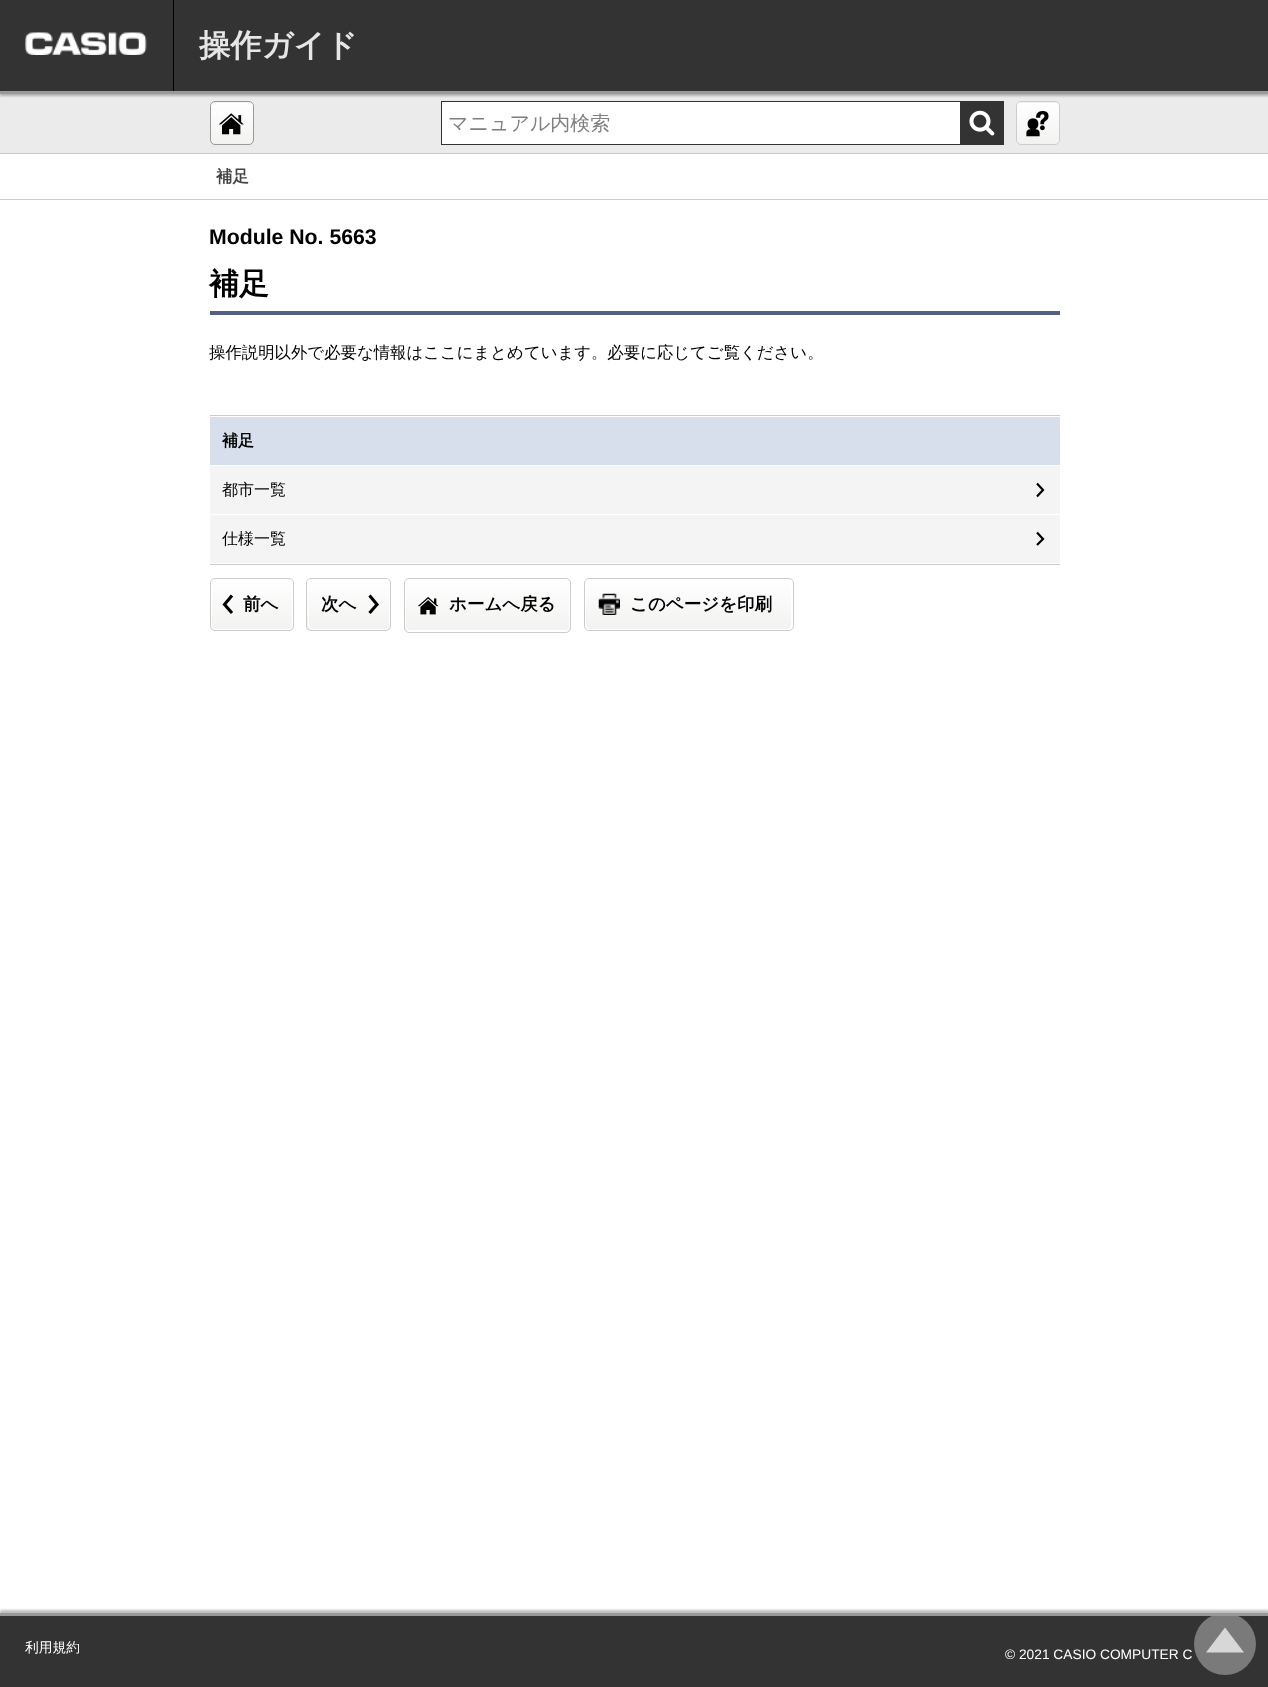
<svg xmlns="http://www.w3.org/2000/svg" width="1268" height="1687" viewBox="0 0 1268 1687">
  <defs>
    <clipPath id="clip1"><rect x="210" y="101" width="44" height="44" rx="5"/></clipPath>
    <linearGradient id="g1" gradientUnits="userSpaceOnUse" x1="232" y1="61" x2="232" y2="103"><stop offset="0" stop-color="rgb(255,255,255)"/><stop offset="1" stop-color="rgb(242,242,241)"/></linearGradient>
    <linearGradient id="g2" gradientUnits="userSpaceOnUse" x1="232" y1="103" x2="232" y2="144"><stop offset="0" stop-color="rgb(255,255,255)"/><stop offset="1" stop-color="rgb(242,242,241)"/></linearGradient>
    <clipPath id="clip2"><rect x="1016" y="101" width="44" height="44" rx="5"/></clipPath>
    <linearGradient id="g3" gradientUnits="userSpaceOnUse" x1="1038" y1="61" x2="1038" y2="103"><stop offset="0" stop-color="rgb(255,255,255)"/><stop offset="1" stop-color="rgb(242,242,241)"/></linearGradient>
    <linearGradient id="g4" gradientUnits="userSpaceOnUse" x1="1038" y1="103" x2="1038" y2="144"><stop offset="0" stop-color="rgb(255,255,255)"/><stop offset="1" stop-color="rgb(242,242,241)"/></linearGradient>
    <clipPath id="clip3"><rect x="210" y="578" width="84" height="53" rx="5"/></clipPath>
    <linearGradient id="g5" gradientUnits="userSpaceOnUse" x1="252" y1="579" x2="252" y2="630"><stop offset="0" stop-color="rgb(255,255,255)"/><stop offset="1" stop-color="rgb(242,242,241)"/></linearGradient>
    <clipPath id="clip4"><rect x="306" y="578" width="85" height="53" rx="5"/></clipPath>
    <linearGradient id="g6" gradientUnits="userSpaceOnUse" x1="349" y1="579" x2="349" y2="630"><stop offset="0" stop-color="rgb(255,255,255)"/><stop offset="1" stop-color="rgb(242,242,241)"/></linearGradient>
    <clipPath id="clip5"><rect x="404" y="578" width="167" height="55" rx="5"/></clipPath>
    <linearGradient id="g7" gradientUnits="userSpaceOnUse" x1="488" y1="579" x2="488" y2="631"><stop offset="0" stop-color="rgb(255,255,255)"/><stop offset="1" stop-color="rgb(242,242,241)"/></linearGradient>
    <linearGradient id="g8" gradientUnits="userSpaceOnUse" x1="689" y1="580" x2="689" y2="629"><stop offset="0" stop-color="rgb(255,255,255)"/><stop offset="1" stop-color="rgb(242,242,241)"/></linearGradient>
  </defs>
  <rect width="100%" height="100%" fill="rgb(255,255,255)"/>
  <rect x="0" y="94" width="1268" height="59" fill="rgb(235,235,235)"/>
  <rect x="0" y="3" width="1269" height="93" fill="rgba(0,0,0,0.25)" filter="blur(1px)"/>
  <rect x="0" y="0" width="1268" height="91" fill="rgb(51,51,51)"/>
  <rect x="0" y="91" width="1268" height="3" fill="rgb(153,153,153)"/>
  <rect x="173" y="0" width="1" height="91" fill="rgb(0,0,0)"/>
  <image x="25" y="32" width="122" height="23" href="pic1.png"/>
  <text x="199" y="56" font-family="WenQuanYi Zen Hei" font-size="31.25" font-weight="bold" fill="rgb(230,230,230)">操作ガイド</text>
  <g clip-path="url(#clip1)">
    <rect x="210" y="101" width="44" height="2" fill="url(#g1)"/>
    <rect x="210" y="103" width="44" height="41" fill="url(#g2)"/>
  </g>
  <rect x="210.5" y="101.5" width="43" height="43" rx="4.5" fill="none" stroke="rgb(153,153,153)"/>
  <image x="218" y="113" width="26" height="22" href="pic2.png"/>
  <g clip-path="url(#clip2)">
    <rect x="1016" y="101" width="44" height="2" fill="url(#g3)"/>
    <rect x="1016" y="103" width="44" height="41" fill="url(#g4)"/>
  </g>
  <rect x="1016.5" y="101.5" width="43" height="43" rx="4.5" fill="none" stroke="rgb(204,204,204)"/>
  <image x="1026" y="111" width="23" height="26" href="pic3.png"/>
  <rect x="442" y="102" width="518" height="42" fill="rgb(255,255,255)"/>
  <rect x="441.5" y="101.5" width="562" height="43" fill="none" stroke="rgb(51,51,51)"/>
  <text x="448" y="130" font-family="WenQuanYi Zen Hei" font-size="20" font-weight="500" fill="rgb(128,128,128)">マニュアル内検索</text>
  <image x="960" y="102" width="43" height="42" href="pic4.png"/>
  <rect x="0" y="153" width="1268" height="1" fill="rgb(204,204,204)"/>
  <rect x="0" y="199" width="1268" height="1" fill="rgb(204,204,204)"/>
  <text x="216" y="182" font-family="WenQuanYi Zen Hei" font-size="16.4" font-weight="bold" fill="rgb(68,68,68)">補足</text>
  <text x="209" y="244" font-family="Liberation Sans" font-size="21.25" font-weight="bold" fill="rgb(0,0,0)">Module No. 5663</text>
  <rect x="210" y="311" width="850" height="4" fill="rgb(84,96,127)"/>
  <text x="209" y="294" font-family="WenQuanYi Zen Hei" font-size="30" font-weight="bold" fill="rgb(0,0,0)">補足</text>
  <text x="209" y="358" font-family="WenQuanYi Zen Hei" font-size="16.4" font-weight="500" fill="rgb(0,0,0)">操作説明以外で必要な情報はここにまとめています。必要に応じてご覧ください。</text>
  <rect x="210" y="415" width="850" height="1" fill="rgb(204,204,204)"/>
  <rect x="210" y="564" width="850" height="1" fill="rgb(204,204,204)"/>
  <rect x="210" y="417" width="850" height="48" fill="rgb(215,223,237)"/>
  <text x="222" y="446" font-family="WenQuanYi Zen Hei" font-size="16" font-weight="bold" fill="rgb(0,0,0)">補足</text>
  <rect x="210" y="466" width="850" height="48" fill="rgb(244,244,244)"/>
  <path d="M1037 496.5L1043 490L1037 483.5" fill="none" stroke="rgb(0,0,0)" stroke-width="2.2"/>
  <text x="222" y="495" font-family="WenQuanYi Zen Hei" font-size="16" font-weight="500" fill="rgb(0,0,0)">都市一覧</text>
  <rect x="210" y="515" width="850" height="48" fill="rgb(244,244,244)"/>
  <path d="M1037 545L1043 539L1037 532.5" fill="none" stroke="rgb(0,0,0)" stroke-width="2.2"/>
  <text x="222" y="544" font-family="WenQuanYi Zen Hei" font-size="16" font-weight="500" fill="rgb(0,0,0)">仕様一覧</text>
  <g clip-path="url(#clip3)">
    <rect x="210" y="579" width="84" height="51" fill="url(#g5)"/>
  </g>
  <rect x="210.5" y="578.5" width="83" height="52" rx="4.5" fill="none" stroke="rgb(204,204,204)"/>
  <path d="M232 613L224.5 604.5L232 595.5" fill="none" stroke="rgb(0,0,0)" stroke-width="3.1"/>
  <rect x="211.5" y="579.5" width="81" height="50" rx="4.5" fill="none" stroke="rgb(255,255,255)"/>
  <text x="243" y="610" font-family="WenQuanYi Zen Hei" font-size="17.5" font-weight="bold" fill="rgb(0,0,0)">前へ</text>
  <g clip-path="url(#clip4)">
    <rect x="306" y="579" width="85" height="51" fill="url(#g6)"/>
  </g>
  <rect x="306.5" y="578.5" width="84" height="52" rx="4.5" fill="none" stroke="rgb(204,204,204)"/>
  <path d="M369.5 613L377 604.5L369.5 595.5" fill="none" stroke="rgb(0,0,0)" stroke-width="3.1"/>
  <rect x="308.5" y="579.5" width="81" height="50" rx="4.5" fill="none" stroke="rgb(255,255,255)"/>
  <text x="321" y="610" font-family="WenQuanYi Zen Hei" font-size="17.5" font-weight="bold" fill="rgb(0,0,0)">次へ</text>
  <g clip-path="url(#clip5)">
    <rect x="404" y="579" width="167" height="52" fill="url(#g7)"/>
  </g>
  <rect x="404.5" y="578.5" width="166" height="54" rx="4.5" fill="none" stroke="rgb(204,204,204)"/>
  <image x="417" y="597" width="22" height="18" href="pic5.png"/>
  <rect x="405.5" y="579.5" width="164" height="51" rx="4.5" fill="none" stroke="rgb(255,255,255)"/>
  <text x="449" y="610" font-family="WenQuanYi Zen Hei" font-size="17.5" font-weight="bold" fill="rgb(0,0,0)">ホームへ戻る</text>
  <rect x="584.5" y="578.5" width="209" height="52" rx="4.5" fill="none" stroke="rgb(204,204,204)"/>
  <rect x="586" y="580" width="205" height="49" rx="4" fill="url(#g8)"/>
  <rect x="585.5" y="579.5" width="207" height="50" rx="4.5" fill="none" stroke="rgb(255,255,255)"/>
  <image x="598" y="593" width="22" height="22" href="pic6.png"/>
  <text x="630" y="610" font-family="WenQuanYi Zen Hei" font-size="17.5" font-weight="bold" fill="rgb(0,0,0)">このページを印刷</text>
  <rect x="0" y="1610" width="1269" height="75" fill="rgba(0,0,0,0.25)" filter="blur(1px)"/>
  <rect x="0" y="1616" width="1268" height="71" fill="rgb(51,51,51)"/>
  <rect x="0" y="1613" width="1268" height="3" fill="rgb(153,153,153)"/>
  <circle cx="1225" cy="1644" r="31" fill="rgba(153,153,153,0.7)"/>
  <path d="M1244 1652.5H1206L1225 1627.5Z" fill="rgba(255,255,255,0.7)"/>
  <text x="25" y="1652" font-family="WenQuanYi Zen Hei" font-size="13.75" font-weight="500" fill="rgb(255,255,255)">利用規約</text>
  <text x="1005" y="1659" font-family="Liberation Sans" font-size="13.75" fill="rgb(255,255,255)">© 2021 CASIO COMPUTER C</text>
</svg>
